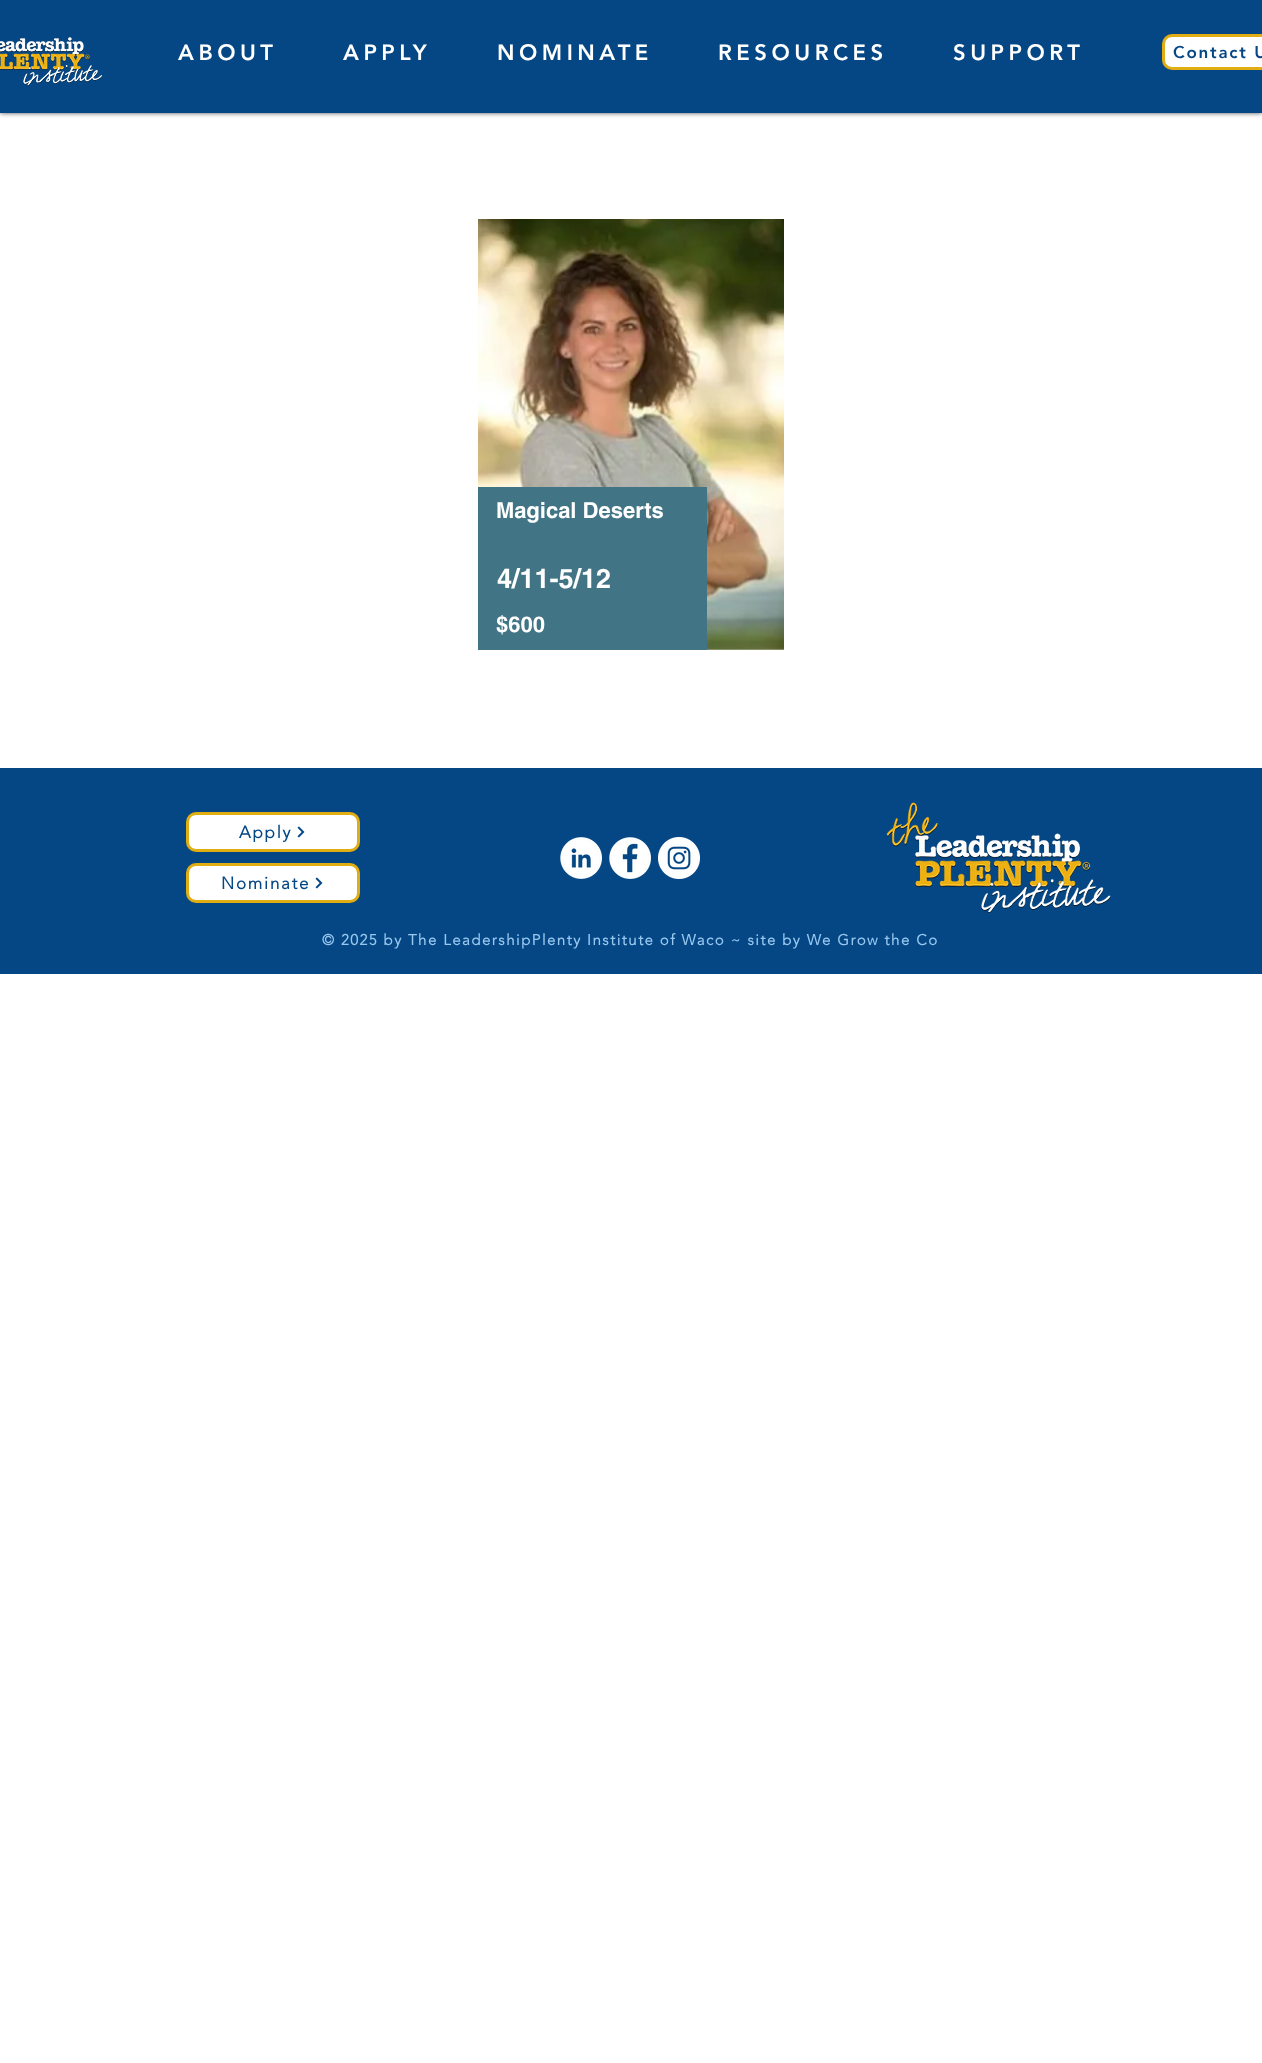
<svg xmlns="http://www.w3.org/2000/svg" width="1262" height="2063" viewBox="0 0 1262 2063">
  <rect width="100%" height="100%" fill="rgb(255,255,255)"/>
  <rect x="0" y="0" width="1262" height="113" fill="rgba(0,0,0,0.7)" filter="blur(2.5px)"/>
  <rect x="0" y="0" width="1262" height="113" fill="rgb(5,71,132)"/>
  <image x="0" y="37" width="103" height="49" href="pic1.png"/>
  <g font-family="'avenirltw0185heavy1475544'" font-size="22" font-weight="900" letter-spacing="4.5" fill="rgb(255,255,255)">
    <text x="178" y="60">ABOUT</text>
    <text x="343" y="60">APPLY</text>
    <text x="497" y="60">NOMINATE</text>
    <text x="718" y="60">RESOURCES</text>
    <text x="953" y="60">SUPPORT</text>
  </g>
  <rect x="1163.5" y="35.5" width="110" height="33" rx="8.5" fill="rgb(255,255,255)" stroke="rgb(224,173,18)" stroke-width="3"/>
  <text x="1173" y="58" font-family="'avenirltw0185heavy1475544'" font-size="17" font-weight="900" letter-spacing="1.75" fill="rgb(5,71,132)">Contact U</text>
  <image x="478" y="219" width="306" height="431" href="pic2.png"/>
  <rect x="478" y="487" width="229" height="163" fill="rgb(65,117,134)"/>
  <text x="496" y="518" font-family="helvetica" font-size="22" font-weight="bold" fill="rgb(255,255,255)">Magical Deserts</text>
  <text x="497" y="588" font-family="helvetica" font-size="27" font-weight="bold" fill="rgb(255,255,255)">4/11-5/12</text>
  <text x="496" y="632" font-family="helvetica" font-size="22" font-weight="bold" fill="rgb(255,255,255)">$600</text>
  <rect x="0" y="768" width="1262" height="206" fill="rgb(5,71,132)"/>
  <rect x="187.5" y="813.5" width="171" height="37" rx="8.5" fill="rgb(255,255,255)" stroke="rgb(224,173,18)" stroke-width="3"/>
  <text x="239" y="838" font-family="'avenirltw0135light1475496'" font-size="17" font-weight="bold" letter-spacing="1.75" fill="rgb(5,71,132)">Apply</text>
  <image x="297" y="826" width="8" height="12" href="pic3.png"/>
  <rect x="187.5" y="864.5" width="171" height="37" rx="8.5" fill="rgb(255,255,255)" stroke="rgb(224,173,18)" stroke-width="3"/>
  <text x="221" y="889" font-family="'avenirltw0135light1475496'" font-size="17" font-weight="bold" letter-spacing="1.75" fill="rgb(5,71,132)">Nominate</text>
  <image x="315" y="877" width="8" height="12" href="pic3.png"/>
  <image x="560" y="837" width="42" height="42" href="pic4.png"/>
  <image x="609" y="837" width="42" height="42" href="pic5.png"/>
  <image x="658" y="837" width="42" height="42" href="pic6.png"/>
  <image x="886" y="802" width="225" height="111" href="pic7.png"/>
  <text x="322" y="945" font-family="'avenirltw0135light1475496'" font-size="15" font-weight="bold" letter-spacing="1.5" fill="rgb(152,200,240)">© 2025 by The LeadershipPlenty Institute of Waco ~ site by We Grow the Co</text>
</svg>
